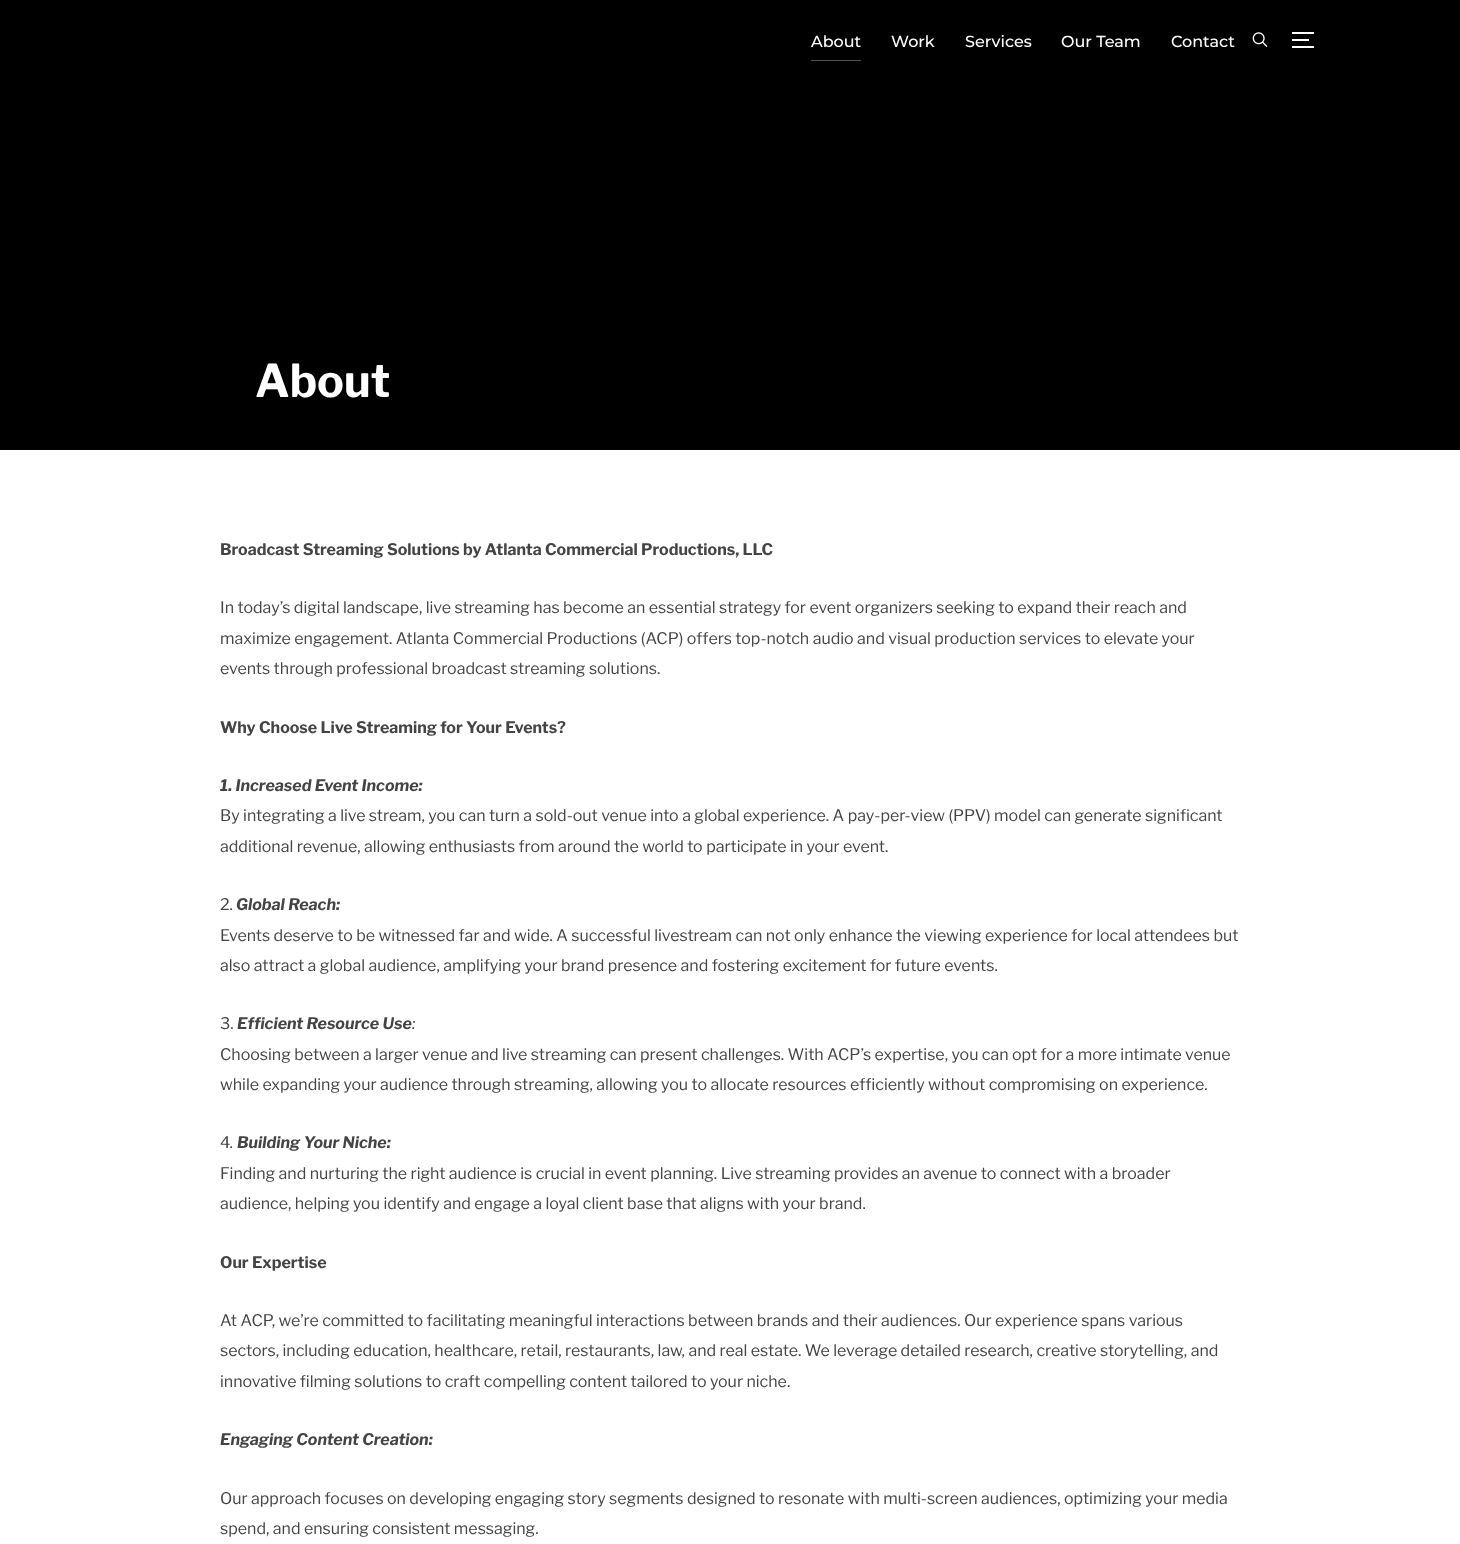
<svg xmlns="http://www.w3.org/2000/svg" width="1460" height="1544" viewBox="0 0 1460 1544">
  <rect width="100%" height="100%" fill="rgb(255,255,255)"/>
  <rect x="0" y="0" width="1460" height="450" fill="rgb(0,0,0)"/>
  <rect x="811" y="60" width="50" height="1" fill="rgb(77,77,77)"/>
  <g font-family="Montserrat" font-size="16" font-weight="500" fill="rgb(255,255,255)">
    <text x="811" y="47">About</text>
    <text x="891" y="47">Work</text>
    <text x="965" y="47">Services</text>
    <text x="1061" y="47">Our Team</text>
    <text x="1171" y="47">Contact</text>
  </g>
  <image x="1252" y="32" width="16" height="15" href="pic1.png"/>
  <rect x="1292" y="32" width="22" height="2" fill="rgb(255,255,255)"/>
  <rect x="1292" y="39" width="17" height="2" fill="rgb(255,255,255)"/>
  <rect x="1292" y="46" width="22" height="2" fill="rgb(255,255,255)"/>
  <text x="255" y="397" font-family="Libre Franklin" font-size="45" font-weight="bold" fill="rgb(255,255,255)">About</text>
  <text x="220" y="555" font-family="Libre Franklin" font-size="16" font-weight="bold" fill="rgb(68,68,68)">Broadcast Streaming Solutions by Atlanta Commercial Productions, LLC</text>
  <g font-family="Libre Franklin" font-size="16" fill="rgb(68,68,68)">
    <text>
      <tspan x="220" y="613">In today’s digital landscape, live streaming has become an essential strategy for event organizers seeking to expand their reach and</tspan>
      <tspan x="220" y="644">maximize engagement. Atlanta Commercial Productions (ACP) offers top-notch audio and visual production services to elevate your</tspan>
      <tspan x="220" y="674">events through professional broadcast streaming solutions.</tspan>
    </text>
  </g>
  <text x="220" y="733" font-family="Libre Franklin" font-size="16" font-weight="bold" fill="rgb(68,68,68)">Why Choose Live Streaming for Your Events?</text>
  <text x="220" y="791" font-family="Libre Franklin" font-size="16" font-weight="bold" font-style="italic" fill="rgb(68,68,68)">1. Increased Event Income:</text>
  <g font-family="Libre Franklin" font-size="16" fill="rgb(68,68,68)">
    <text>
      <tspan x="220" y="821">By integrating a live stream, you can turn a sold-out venue into a global experience. A pay-per-view (PPV) model can generate significant</tspan>
      <tspan x="220" y="852">additional revenue, allowing enthusiasts from around the world to participate in your event.</tspan>
    </text>
    <text x="220" y="910">2.</text>
  </g>
  <text x="236" y="910" font-family="Libre Franklin" font-size="16" font-weight="bold" font-style="italic" fill="rgb(68,68,68)">Global Reach:</text>
  <g font-family="Libre Franklin" font-size="16" fill="rgb(68,68,68)">
    <text>
      <tspan x="220" y="941">Events deserve to be witnessed far and wide. A successful livestream can not only enhance the viewing experience for local attendees but</tspan>
      <tspan x="220" y="971">also attract a global audience, amplifying your brand presence and fostering excitement for future events.</tspan>
    </text>
    <text x="220" y="1029">3.</text>
  </g>
  <text x="237" y="1029" font-family="Libre Franklin" font-size="16" font-weight="bold" font-style="italic" fill="rgb(68,68,68)">Efficient Resource Use</text>
  <text x="412" y="1029" font-family="Libre Franklin" font-size="16" font-style="italic" fill="rgb(68,68,68)">:</text>
  <g font-family="Libre Franklin" font-size="16" fill="rgb(68,68,68)">
    <text>
      <tspan x="220" y="1060">Choosing between a larger venue and live streaming can present challenges. With ACP’s expertise, you can opt for a more intimate venue</tspan>
      <tspan x="220" y="1090">while expanding your audience through streaming, allowing you to allocate resources efficiently without compromising on experience.</tspan>
    </text>
    <text x="220" y="1148">4</text>
  </g>
  <text x="230" y="1148" font-family="Libre Franklin" font-size="16" font-style="italic" fill="rgb(68,68,68)">.</text>
  <text x="237" y="1148" font-family="Libre Franklin" font-size="16" font-weight="bold" font-style="italic" fill="rgb(68,68,68)">Building Your Niche:</text>
  <g font-family="Libre Franklin" font-size="16" fill="rgb(68,68,68)">
    <text>
      <tspan x="220" y="1179">Finding and nurturing the right audience is crucial in event planning. Live streaming provides an avenue to connect with a broader</tspan>
      <tspan x="220" y="1209">audience, helping you identify and engage a loyal client base that aligns with your brand.</tspan>
    </text>
  </g>
  <text x="220" y="1268" font-family="Libre Franklin" font-size="16" font-weight="bold" fill="rgb(68,68,68)">Our Expertise</text>
  <g font-family="Libre Franklin" font-size="16" fill="rgb(68,68,68)">
    <text>
      <tspan x="220" y="1326">At ACP, we’re committed to facilitating meaningful interactions between brands and their audiences. Our experience spans various</tspan>
      <tspan x="220" y="1356">sectors, including education, healthcare, retail, restaurants, law, and real estate. We leverage detailed research, creative storytelling, and</tspan>
      <tspan x="220" y="1387">innovative filming solutions to craft compelling content tailored to your niche.</tspan>
    </text>
  </g>
  <text x="220" y="1445" font-family="Libre Franklin" font-size="16" font-weight="bold" font-style="italic" fill="rgb(68,68,68)">Engaging Content Creation:</text>
  <g font-family="Libre Franklin" font-size="16" fill="rgb(68,68,68)">
    <text>
      <tspan x="220" y="1504">Our approach focuses on developing engaging story segments designed to resonate with multi-screen audiences, optimizing your media</tspan>
      <tspan x="220" y="1534">spend, and ensuring consistent messaging.</tspan>
    </text>
  </g>
</svg>
